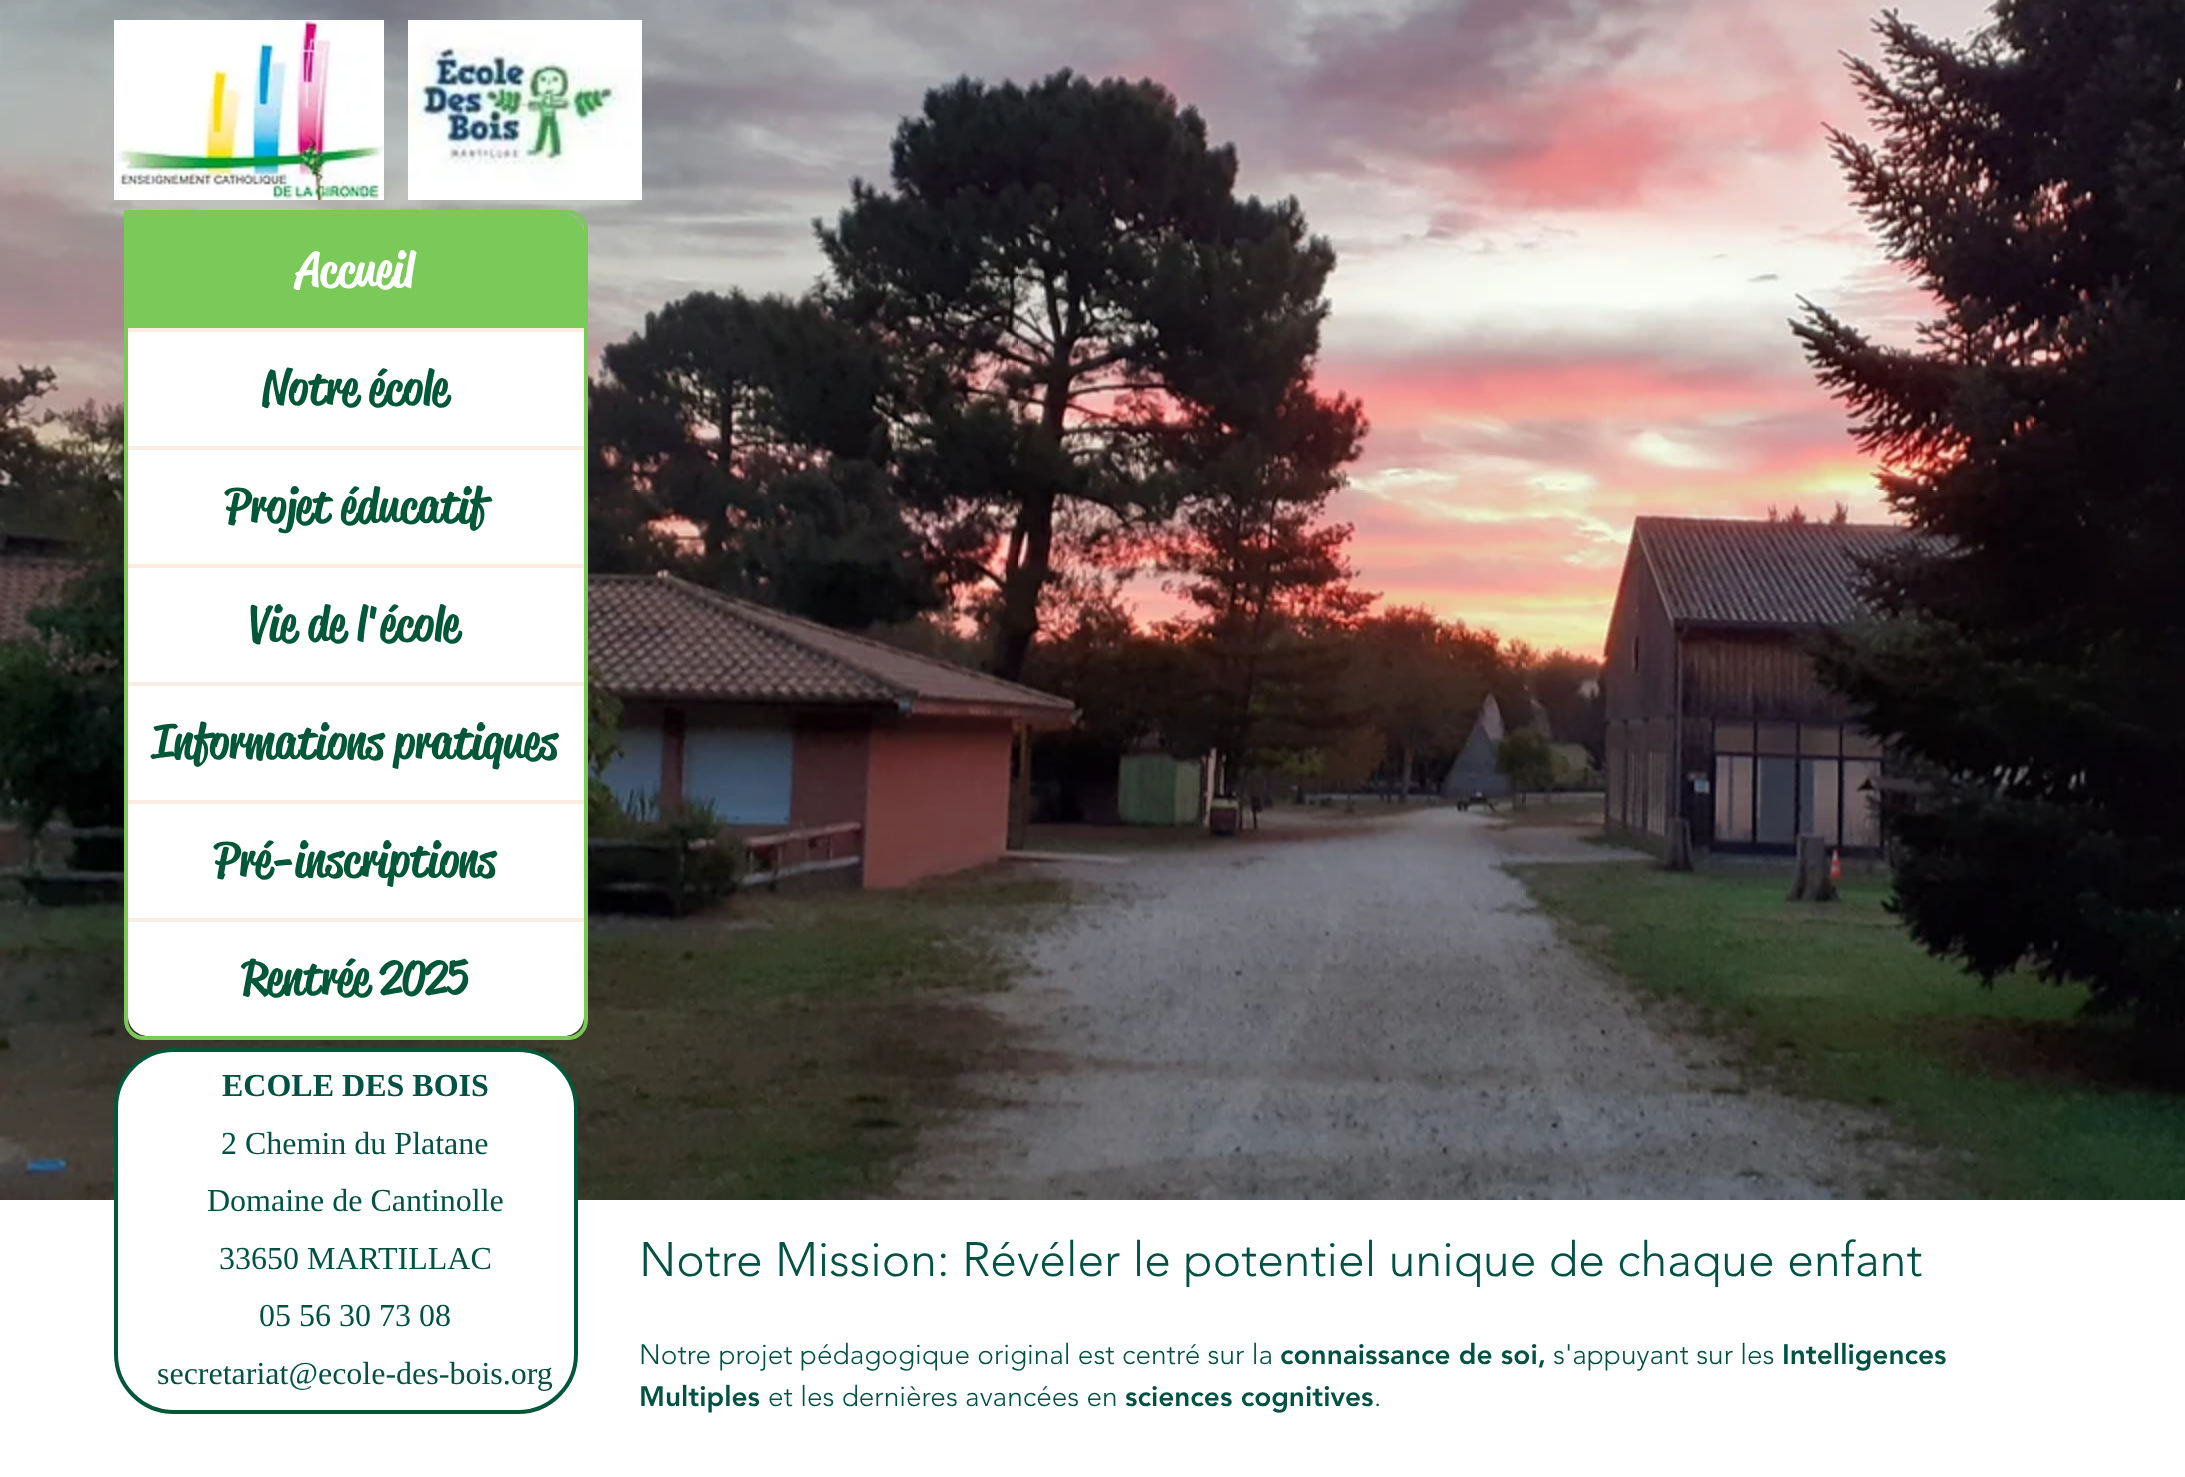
<svg xmlns="http://www.w3.org/2000/svg" width="2185" height="1477" viewBox="0 0 2185 1477">
  <rect width="100%" height="100%" fill="rgb(255,255,255)"/>
  <image x="0" y="0" width="2185" height="1200" href="pic3.png"/>
  <image x="114" y="20" width="270" height="180" href="pic1.png"/>
  <image x="408" y="20" width="234" height="180" href="pic2.png"/>
  <path d="M126 212H568C578 212 586 220 586 230V1020C586 1030 578 1038 568 1038H144C134 1038 126 1030 126 1020Z" fill="none" stroke="rgb(122,201,89)" stroke-width="4"/>
  <rect x="128" y="328" width="456" height="4" fill="rgb(250,236,225)"/>
  <path d="M128 214H564C575 214 584 223 584 234V328H128Z" fill="rgb(122,201,89)"/>
  <text x="296" y="286" font-family="'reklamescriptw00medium'" font-size="48" font-weight="500" fill="rgb(255,255,255)">Accueil</text>
  <rect x="128" y="446" width="456" height="4" fill="rgb(250,236,225)"/>
  <rect x="128" y="332" width="456" height="114" fill="rgb(255,255,255)"/>
  <text x="262" y="404" font-family="'reklamescriptw00medium'" font-size="48" font-weight="500" fill="rgb(1,87,56)">Notre école</text>
  <rect x="128" y="564" width="456" height="4" fill="rgb(250,236,225)"/>
  <rect x="128" y="450" width="456" height="114" fill="rgb(255,255,255)"/>
  <text x="225" y="522" font-family="'reklamescriptw00medium'" font-size="48" font-weight="500" fill="rgb(1,87,56)">Projet éducatif</text>
  <rect x="128" y="682" width="456" height="4" fill="rgb(250,236,225)"/>
  <rect x="128" y="568" width="456" height="114" fill="rgb(255,255,255)"/>
  <text x="250" y="640" font-family="'reklamescriptw00medium'" font-size="48" font-weight="500" fill="rgb(1,87,56)">Vie de l'école</text>
  <rect x="128" y="800" width="456" height="4" fill="rgb(250,236,225)"/>
  <rect x="128" y="686" width="456" height="114" fill="rgb(255,255,255)"/>
  <text x="152" y="758" font-family="'reklamescriptw00medium'" font-size="48" font-weight="500" fill="rgb(1,87,56)">Informations pratiques</text>
  <rect x="128" y="918" width="456" height="4" fill="rgb(250,236,225)"/>
  <rect x="128" y="804" width="456" height="114" fill="rgb(255,255,255)"/>
  <text x="214" y="876" font-family="'reklamescriptw00medium'" font-size="48" font-weight="500" fill="rgb(1,87,56)">Pré-inscriptions</text>
  <path d="M128 922H584V1016C584 1027 575 1036 564 1036H148C137 1036 128 1027 128 1016Z" fill="rgb(255,255,255)"/>
  <text x="242" y="994" font-family="'reklamescriptw00medium'" font-size="48" font-weight="500" fill="rgb(1,87,56)">Rentrée 2025</text>
  <rect x="116" y="1050" width="460" height="362" rx="58" fill="rgb(255,255,255)" stroke="rgb(1,87,56)" stroke-width="4"/>
  <text x="222" y="1096" font-family="Liberation Serif" font-size="32" font-weight="bold" fill="rgb(1,82,67)">ECOLE DES BOIS</text>
  <g font-family="Liberation Serif" font-size="32" fill="rgb(1,82,67)">
    <text x="221" y="1154">2 Chemin du Platane</text>
    <text x="207" y="1211">Domaine de Cantinolle</text>
    <text x="219" y="1269">33650 MARTILLAC</text>
    <text x="259" y="1326">05 56 30 73 08</text>
    <text x="157" y="1384">secretariat@ecole-des-bois.org</text>
  </g>
  <text x="639" y="1276" font-family="'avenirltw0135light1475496'" font-size="48" font-weight="300" fill="rgb(1,82,67)">Notre Mission: Révéler le potentiel unique de chaque enfant</text>
  <text x="639" y="1364" font-family="'avenirltw0135light1475496'" font-size="28" font-weight="300" fill="rgb(1,82,67)">Notre projet pédagogique original est centré sur la</text>
  <text x="1280" y="1364" font-family="'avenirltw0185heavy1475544'" font-size="28" font-weight="900" fill="rgb(1,82,67)">connaissance de soi,</text>
  <text x="1553" y="1364" font-family="'avenirltw0135light1475496'" font-size="28" font-weight="300" fill="rgb(1,82,67)">s'appuyant sur les</text>
  <g font-family="'avenirltw0185heavy1475544'" font-size="28" font-weight="900" fill="rgb(1,82,67)">
    <text x="1782" y="1364">Intelligences</text>
    <text x="639" y="1406">Multiples</text>
  </g>
  <text x="768" y="1406" font-family="'avenirltw0135light1475496'" font-size="28" font-weight="300" fill="rgb(1,82,67)">et les dernières avancées en</text>
  <text x="1125" y="1406" font-family="'avenirltw0185heavy1475544'" font-size="28" font-weight="900" fill="rgb(1,82,67)">sciences cognitives</text>
  <text x="1374" y="1406" font-family="'avenirltw0135light1475496'" font-size="28" font-weight="300" fill="rgb(1,82,67)">.</text>
</svg>
